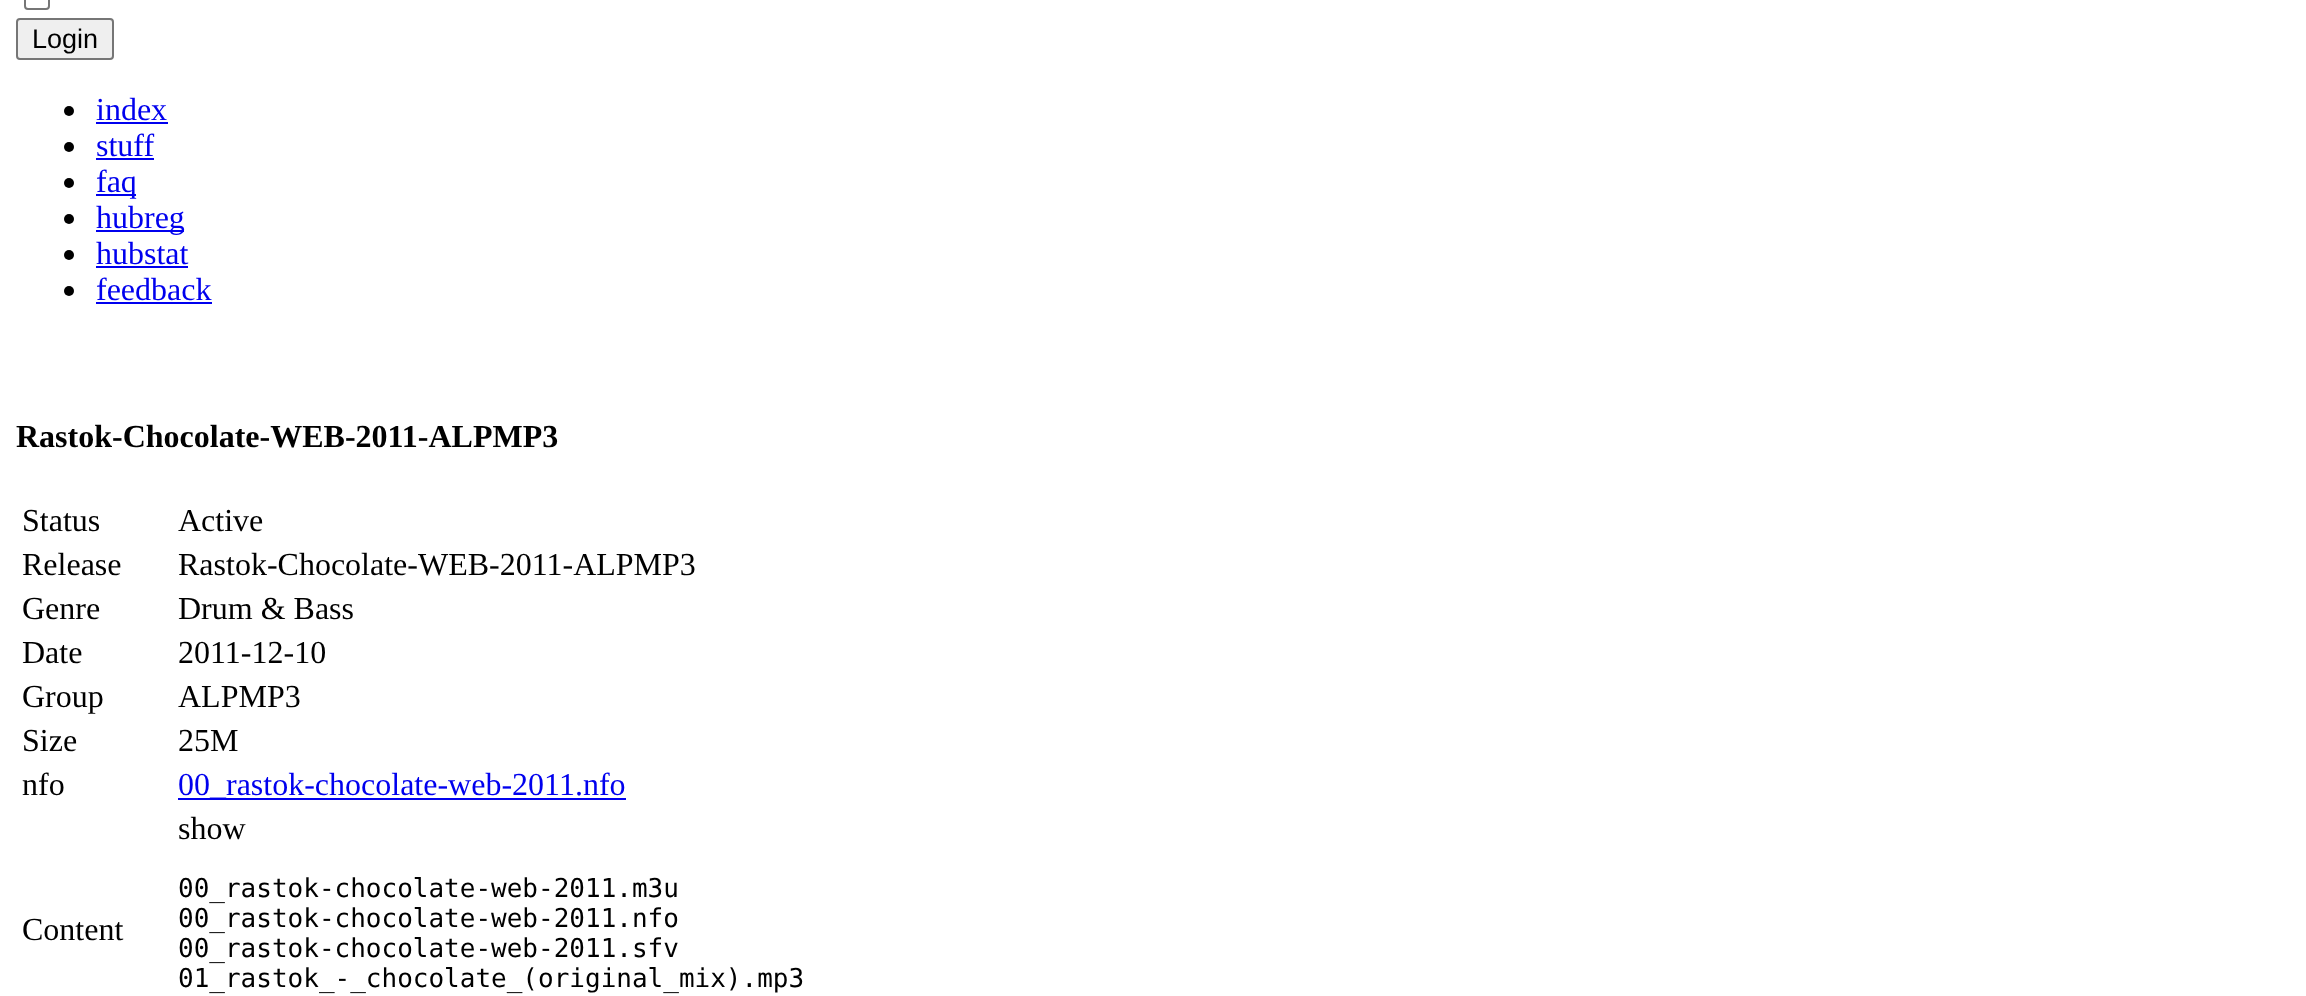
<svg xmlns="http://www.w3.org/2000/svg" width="2306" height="996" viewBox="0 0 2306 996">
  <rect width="100%" height="100%" fill="rgb(255,255,255)"/>
  <rect x="25" y="-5" width="24" height="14" rx="3" fill="none" stroke="rgb(118,118,118)" stroke-width="2"/>
  <rect x="17" y="19" width="96" height="40" rx="3" fill="rgb(239,239,239)" stroke="rgb(118,118,118)" stroke-width="2"/>
  <text x="32" y="48" font-family="Liberation Sans" font-size="27" fill="rgb(0,0,0)">Login</text>
  <circle cx="69" cy="111" r="5" fill="rgb(0,0,0)"/>
  <text x="96" y="120" font-family="Liberation Serif" font-size="32" fill="rgb(0,0,238)">index</text>
  <rect x="96" y="122" width="72" height="2" fill="rgb(0,0,238)"/>
  <circle cx="69" cy="147" r="5" fill="rgb(0,0,0)"/>
  <text x="96" y="156" font-family="Liberation Serif" font-size="32" fill="rgb(0,0,238)">stuff</text>
  <rect x="96" y="158" width="58" height="2" fill="rgb(0,0,238)"/>
  <circle cx="69" cy="183" r="5" fill="rgb(0,0,0)"/>
  <rect x="96" y="194" width="40" height="2" fill="rgb(0,0,238)"/>
  <text x="96" y="192" font-family="Liberation Serif" font-size="32" fill="rgb(0,0,238)">faq</text>
  <circle cx="69" cy="219" r="5" fill="rgb(0,0,0)"/>
  <rect x="96" y="230" width="88" height="2" fill="rgb(0,0,238)"/>
  <text x="96" y="228" font-family="Liberation Serif" font-size="32" fill="rgb(0,0,238)">hubreg</text>
  <circle cx="69" cy="255" r="5" fill="rgb(0,0,0)"/>
  <text x="96" y="264" font-family="Liberation Serif" font-size="32" fill="rgb(0,0,238)">hubstat</text>
  <rect x="96" y="266" width="92" height="2" fill="rgb(0,0,238)"/>
  <circle cx="69" cy="291" r="5" fill="rgb(0,0,0)"/>
  <text x="96" y="300" font-family="Liberation Serif" font-size="32" fill="rgb(0,0,238)">feedback</text>
  <rect x="96" y="302" width="116" height="2" fill="rgb(0,0,238)"/>
  <text x="16" y="447" font-family="Liberation Serif" font-size="32" font-weight="bold" fill="rgb(0,0,0)">Rastok-Chocolate-WEB-2011-ALPMP3</text>
  <g font-family="Liberation Serif" font-size="32" fill="rgb(0,0,0)">
    <text x="22" y="531">Status</text>
    <text x="178" y="531">Active</text>
    <text x="22" y="575">Release</text>
    <text x="178" y="575">Rastok-Chocolate-WEB-2011-ALPMP3</text>
    <text x="22" y="619">Genre</text>
    <text x="178" y="619">Drum &amp; Bass</text>
    <text x="22" y="663">Date</text>
    <text x="178" y="663">2011-12-10</text>
    <text x="22" y="707">Group</text>
    <text x="178" y="707">ALPMP3</text>
    <text x="22" y="751">Size</text>
    <text x="178" y="751">25M</text>
    <text x="22" y="795">nfo</text>
  </g>
  <rect x="178" y="798" width="448" height="2" fill="rgb(0,0,238)"/>
  <text x="178" y="795" font-family="Liberation Serif" font-size="32" fill="rgb(0,0,238)">00_rastok-chocolate-web-2011.nfo</text>
  <g font-family="Liberation Serif" font-size="32" fill="rgb(0,0,0)">
    <text x="22" y="940">Content</text>
    <text x="178" y="839">show</text>
  </g>
  <g font-family="DejaVu Sans Mono" font-size="26" fill="rgb(0,0,0)">
    <text>
      <tspan x="178" y="897">00_rastok-chocolate-web-2011.m3u</tspan>
      <tspan x="178" y="927">00_rastok-chocolate-web-2011.nfo</tspan>
      <tspan x="178" y="957">00_rastok-chocolate-web-2011.sfv</tspan>
      <tspan x="178" y="987">01_rastok_-_chocolate_(original_mix).mp3</tspan>
    </text>
  </g>
</svg>
